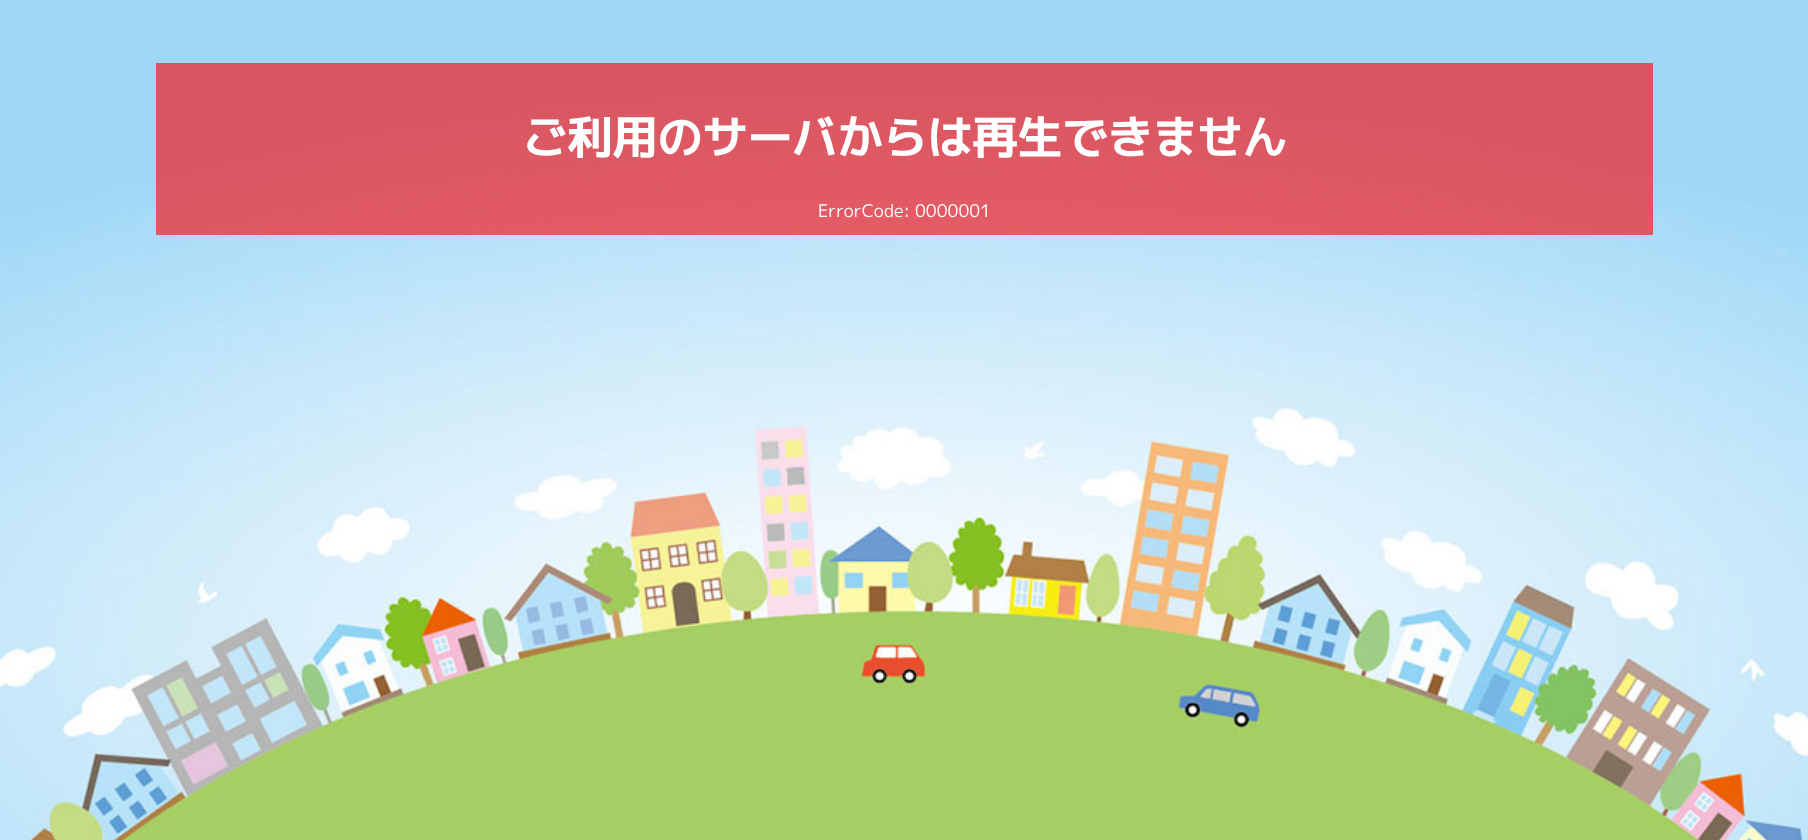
<svg xmlns="http://www.w3.org/2000/svg" width="1808" height="840" viewBox="0 0 1808 840">
  <rect width="100%" height="100%" fill="rgb(255,255,255)"/>
  <image x="0" y="0" width="1808" height="840" href="pic1.png"/>
  <rect x="156" y="63" width="1497" height="172" fill="rgba(255,0,0,0.6)"/>
  <text x="522" y="154" font-family="'M PLUS 1p'" font-size="45" font-weight="bold" fill="rgb(255,255,255)">ご利用のサーバからは再生できません</text>
  <text x="818" y="217" font-family="'M PLUS 1p'" font-size="17.5" fill="rgb(255,255,255)">ErrorCode: 0000001</text>
</svg>
